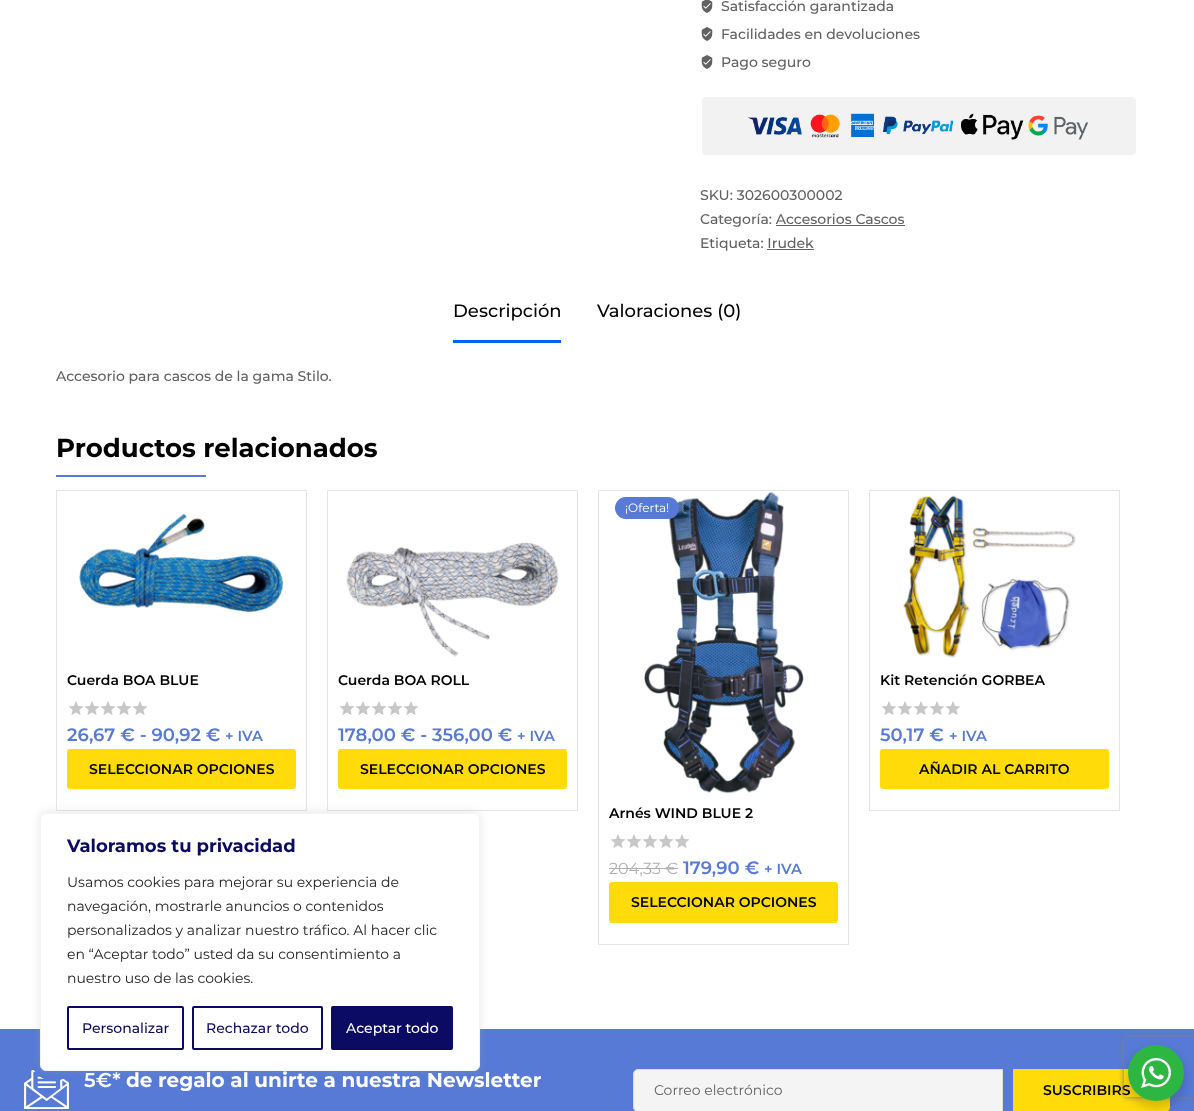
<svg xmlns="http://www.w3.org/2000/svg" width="1194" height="1111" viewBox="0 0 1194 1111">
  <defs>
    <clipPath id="clip1"><path d="M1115 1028H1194V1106H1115ZM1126 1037H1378C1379 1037 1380 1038 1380 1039V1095C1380 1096 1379 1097 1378 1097H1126C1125 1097 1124 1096 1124 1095V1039C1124 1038 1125 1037 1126 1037Z" clip-rule="evenodd"/></clipPath>
  </defs>
  <rect width="100%" height="100%" fill="rgb(255,255,255)"/>
  <image x="701" y="0" width="12" height="13" href="pic1.png"/>
  <text x="721" y="11" font-family="Montserrat" font-size="14" font-weight="500" fill="rgb(97,97,97)">Satisfacción garantizada</text>
  <image x="701" y="27" width="12" height="14" href="pic2.png"/>
  <text x="721" y="39" font-family="Montserrat" font-size="14" font-weight="500" fill="rgb(97,97,97)">Facilidades en devoluciones</text>
  <image x="701" y="55" width="12" height="14" href="pic2.png"/>
  <text x="721" y="67" font-family="Montserrat" font-size="14" font-weight="500" fill="rgb(97,97,97)">Pago seguro</text>
  <rect x="702" y="97" width="434" height="58" rx="4" fill="rgb(242,242,242)"/>
  <image x="747" y="113" width="341" height="27" href="pic3.png"/>
  <g font-family="Montserrat" font-size="14" font-weight="500" fill="rgb(97,97,97)">
    <text>
      <tspan x="700" y="200">SKU: 302600300002</tspan>
      <tspan x="700" y="224">Categoría: Accesorios Cascos</tspan>
    </text>
  </g>
  <rect x="776" y="225" width="129" height="1" fill="rgb(97,97,97)"/>
  <text x="700" y="248" font-family="Montserrat" font-size="14" font-weight="500" fill="rgb(97,97,97)">Etiqueta: Irudek</text>
  <rect x="767" y="249" width="47" height="1" fill="rgb(97,97,97)"/>
  <rect x="453" y="340" width="108" height="3" fill="rgb(0,96,255)"/>
  <g font-family="Montserrat" font-size="18" font-weight="500" fill="rgb(0,0,0)">
    <text x="453" y="317">Descripción</text>
    <text x="597" y="317">Valoraciones (0)</text>
  </g>
  <text x="56" y="381" font-family="Montserrat" font-size="14" font-weight="500" fill="rgb(97,97,97)">Accesorio para cascos de la gama Stilo.</text>
  <text x="56" y="457" font-family="Montserrat" font-size="26" font-weight="bold" fill="rgb(0,0,0)">Productos relacionados</text>
  <rect x="56" y="475" width="150" height="2" fill="rgb(86,122,213)"/>
  <rect x="56.5" y="490.5" width="250" height="320" fill="none" stroke="rgb(229,229,229)"/>
  <image x="79" y="513" width="205" height="100" href="pic4.png"/>
  <text x="67" y="685" font-family="Montserrat" font-size="14" font-weight="600" fill="rgb(0,0,0)">Cuerda BOA BLUE</text>
  <image x="68" y="701" width="80" height="14" href="pic5.png"/>
  <text x="67" y="741" font-family="Montserrat" font-size="18" font-weight="600" fill="rgb(86,122,213)">26,67 € - 90,92 €</text>
  <text x="225" y="741" font-family="Montserrat" font-size="14.5" font-weight="600" fill="rgb(86,122,213)">+ IVA</text>
  <rect x="67" y="749" width="229" height="40" rx="3" fill="rgb(255,219,9)"/>
  <text x="89" y="774" font-family="Montserrat" font-size="14" font-weight="600" fill="rgb(0,0,0)">SELECCIONAR OPCIONES</text>
  <rect x="327.5" y="490.5" width="250" height="320" fill="none" stroke="rgb(229,229,229)"/>
  <image x="346" y="542" width="213" height="115" href="pic6.png"/>
  <text x="338" y="685" font-family="Montserrat" font-size="14" font-weight="600" fill="rgb(0,0,0)">Cuerda BOA ROLL</text>
  <image x="339" y="701" width="80" height="14" href="pic5.png"/>
  <text x="338" y="741" font-family="Montserrat" font-size="18" font-weight="600" fill="rgb(86,122,213)">178,00 € - 356,00 €</text>
  <text x="517" y="741" font-family="Montserrat" font-size="14.5" font-weight="600" fill="rgb(86,122,213)">+ IVA</text>
  <rect x="338" y="749" width="229" height="40" rx="3" fill="rgb(255,219,9)"/>
  <text x="360" y="774" font-family="Montserrat" font-size="14" font-weight="600" fill="rgb(0,0,0)">SELECCIONAR OPCIONES</text>
  <rect x="598.5" y="490.5" width="250" height="454" fill="none" stroke="rgb(229,229,229)"/>
  <image x="644" y="492" width="160" height="302" href="pic7.png"/>
  <rect x="615" y="497" width="64" height="22" rx="11" fill="rgb(86,122,213)"/>
  <text x="625" y="512" font-family="Montserrat" font-size="12" fill="rgb(255,255,255)">¡Oferta!</text>
  <text x="609" y="818" font-family="Montserrat" font-size="14" font-weight="600" fill="rgb(0,0,0)">Arnés WIND BLUE 2</text>
  <image x="610" y="834" width="80" height="14" href="pic5.png"/>
  <text x="609" y="874" font-family="Montserrat" font-size="16" fill="rgb(176,176,176)">204,33 €</text>
  <rect x="609" y="868" width="69" height="1" fill="rgb(176,176,176)"/>
  <text x="683" y="874" font-family="Montserrat" font-size="18" font-weight="600" fill="rgb(86,122,213)">179,90 €</text>
  <text x="764" y="874" font-family="Montserrat" font-size="14.5" font-weight="600" fill="rgb(86,122,213)">+ IVA</text>
  <rect x="609" y="882" width="229" height="41" rx="3" fill="rgb(255,219,9)"/>
  <text x="631" y="907" font-family="Montserrat" font-size="14" font-weight="600" fill="rgb(0,0,0)">SELECCIONAR OPCIONES</text>
  <rect x="869.5" y="490.5" width="250" height="320" fill="none" stroke="rgb(229,229,229)"/>
  <image x="903" y="495" width="173" height="163" href="pic8.png"/>
  <text x="880" y="685" font-family="Montserrat" font-size="14" font-weight="600" fill="rgb(0,0,0)">Kit Retención GORBEA</text>
  <image x="881" y="701" width="80" height="14" href="pic5.png"/>
  <text x="880" y="741" font-family="Montserrat" font-size="18" font-weight="600" fill="rgb(86,122,213)">50,17 €</text>
  <text x="949" y="741" font-family="Montserrat" font-size="14.5" font-weight="600" fill="rgb(86,122,213)">+ IVA</text>
  <rect x="880" y="749" width="229" height="40" rx="3" fill="rgb(255,219,9)"/>
  <text x="919" y="774" font-family="Montserrat" font-size="14" font-weight="600" fill="rgb(0,0,0)">AÑADIR AL CARRITO</text>
  <rect x="0" y="1029" width="1194" height="82" fill="rgb(86,122,213)"/>
  <image x="24" y="1070" width="45" height="39" href="pic9.png"/>
  <text x="84" y="1087" font-family="Montserrat" font-size="20" font-weight="600" fill="rgb(255,255,255)">5€*</text>
  <text x="126" y="1087" font-family="Montserrat" font-size="20" font-weight="bold" fill="rgb(255,255,255)">de regalo al unirte a nuestra Newsletter</text>
  <path d="M638 1069.5H1002.5V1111.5H638C635.5 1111.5 633.5 1109.5 633.5 1107V1074C633.5 1071.5 635.5 1069.5 638 1069.5Z" fill="rgb(244,244,244)" stroke="rgb(221,221,221)"/>
  <text x="654" y="1095" font-family="Montserrat" font-size="14" fill="rgb(97,97,97)">Correo electrónico</text>
  <path d="M1013 1069H1165C1168 1069 1170 1071 1170 1074V1107C1170 1110 1168 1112 1165 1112H1013Z" fill="rgb(255,219,9)"/>
  <text x="1043" y="1095" font-family="Montserrat" font-size="14" font-weight="600" fill="rgb(0,0,0)">SUSCRIBIRS</text>
  <circle cx="53.5" cy="1057.5" r="23" fill="rgb(86,122,213)" stroke="rgb(86,122,213)"/>
  <rect x="40" y="812" width="440" height="258" rx="6" fill="rgba(172,171,171,0.3)" filter="blur(5px)"/>
  <rect x="40.5" y="813.5" width="439" height="257" rx="5.5" fill="rgb(255,255,255)" stroke="rgb(244,244,244)"/>
  <text x="67" y="852" font-family="Montserrat" font-size="18" font-weight="bold" fill="rgb(11,11,100)">Valoramos tu privacidad</text>
  <g font-family="Montserrat" font-size="14" fill="rgb(33,33,33)">
    <text>
      <tspan x="67" y="887">Usamos cookies para mejorar su experiencia de</tspan>
      <tspan x="67" y="911">navegación, mostrarle anuncios o contenidos</tspan>
      <tspan x="67" y="935">personalizados y analizar nuestro tráfico. Al hacer clic</tspan>
      <tspan x="67" y="959">en “Aceptar todo” usted da su consentimiento a</tspan>
      <tspan x="67" y="983">nuestro uso de las cookies.</tspan>
    </text>
  </g>
  <rect x="68" y="1007" width="115" height="42" rx="1" fill="none" stroke="rgb(11,11,100)" stroke-width="2"/>
  <text x="82" y="1033" font-family="Montserrat" font-size="14" font-weight="500" fill="rgb(11,11,100)">Personalizar</text>
  <rect x="193" y="1007" width="129" height="42" rx="1" fill="none" stroke="rgb(11,11,100)" stroke-width="2"/>
  <text x="206" y="1033" font-family="Montserrat" font-size="14" font-weight="500" fill="rgb(11,11,100)">Rechazar todo</text>
  <rect x="332" y="1007" width="120" height="42" rx="1" fill="rgb(11,11,100)" stroke="rgb(11,11,100)" stroke-width="2"/>
  <text x="346" y="1033" font-family="Montserrat" font-size="14" font-weight="500" fill="rgb(255,255,255)">Aceptar todo</text>
  <g clip-path="url(#clip1)">
    <rect x="1124" y="1037" width="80" height="60" rx="2" fill="rgb(128,128,128)" filter="blur(2.5px)"/>
  </g>
  <rect x="1126" y="1049" width="60" height="60" rx="30" fill="rgba(0,0,0,0.14)" filter="blur(4px)"/>
  <circle cx="1156" cy="1073" r="28" fill="rgb(45,183,66)"/>
  <image x="1141" y="1058" width="30" height="30" href="pic10.png"/>
</svg>
